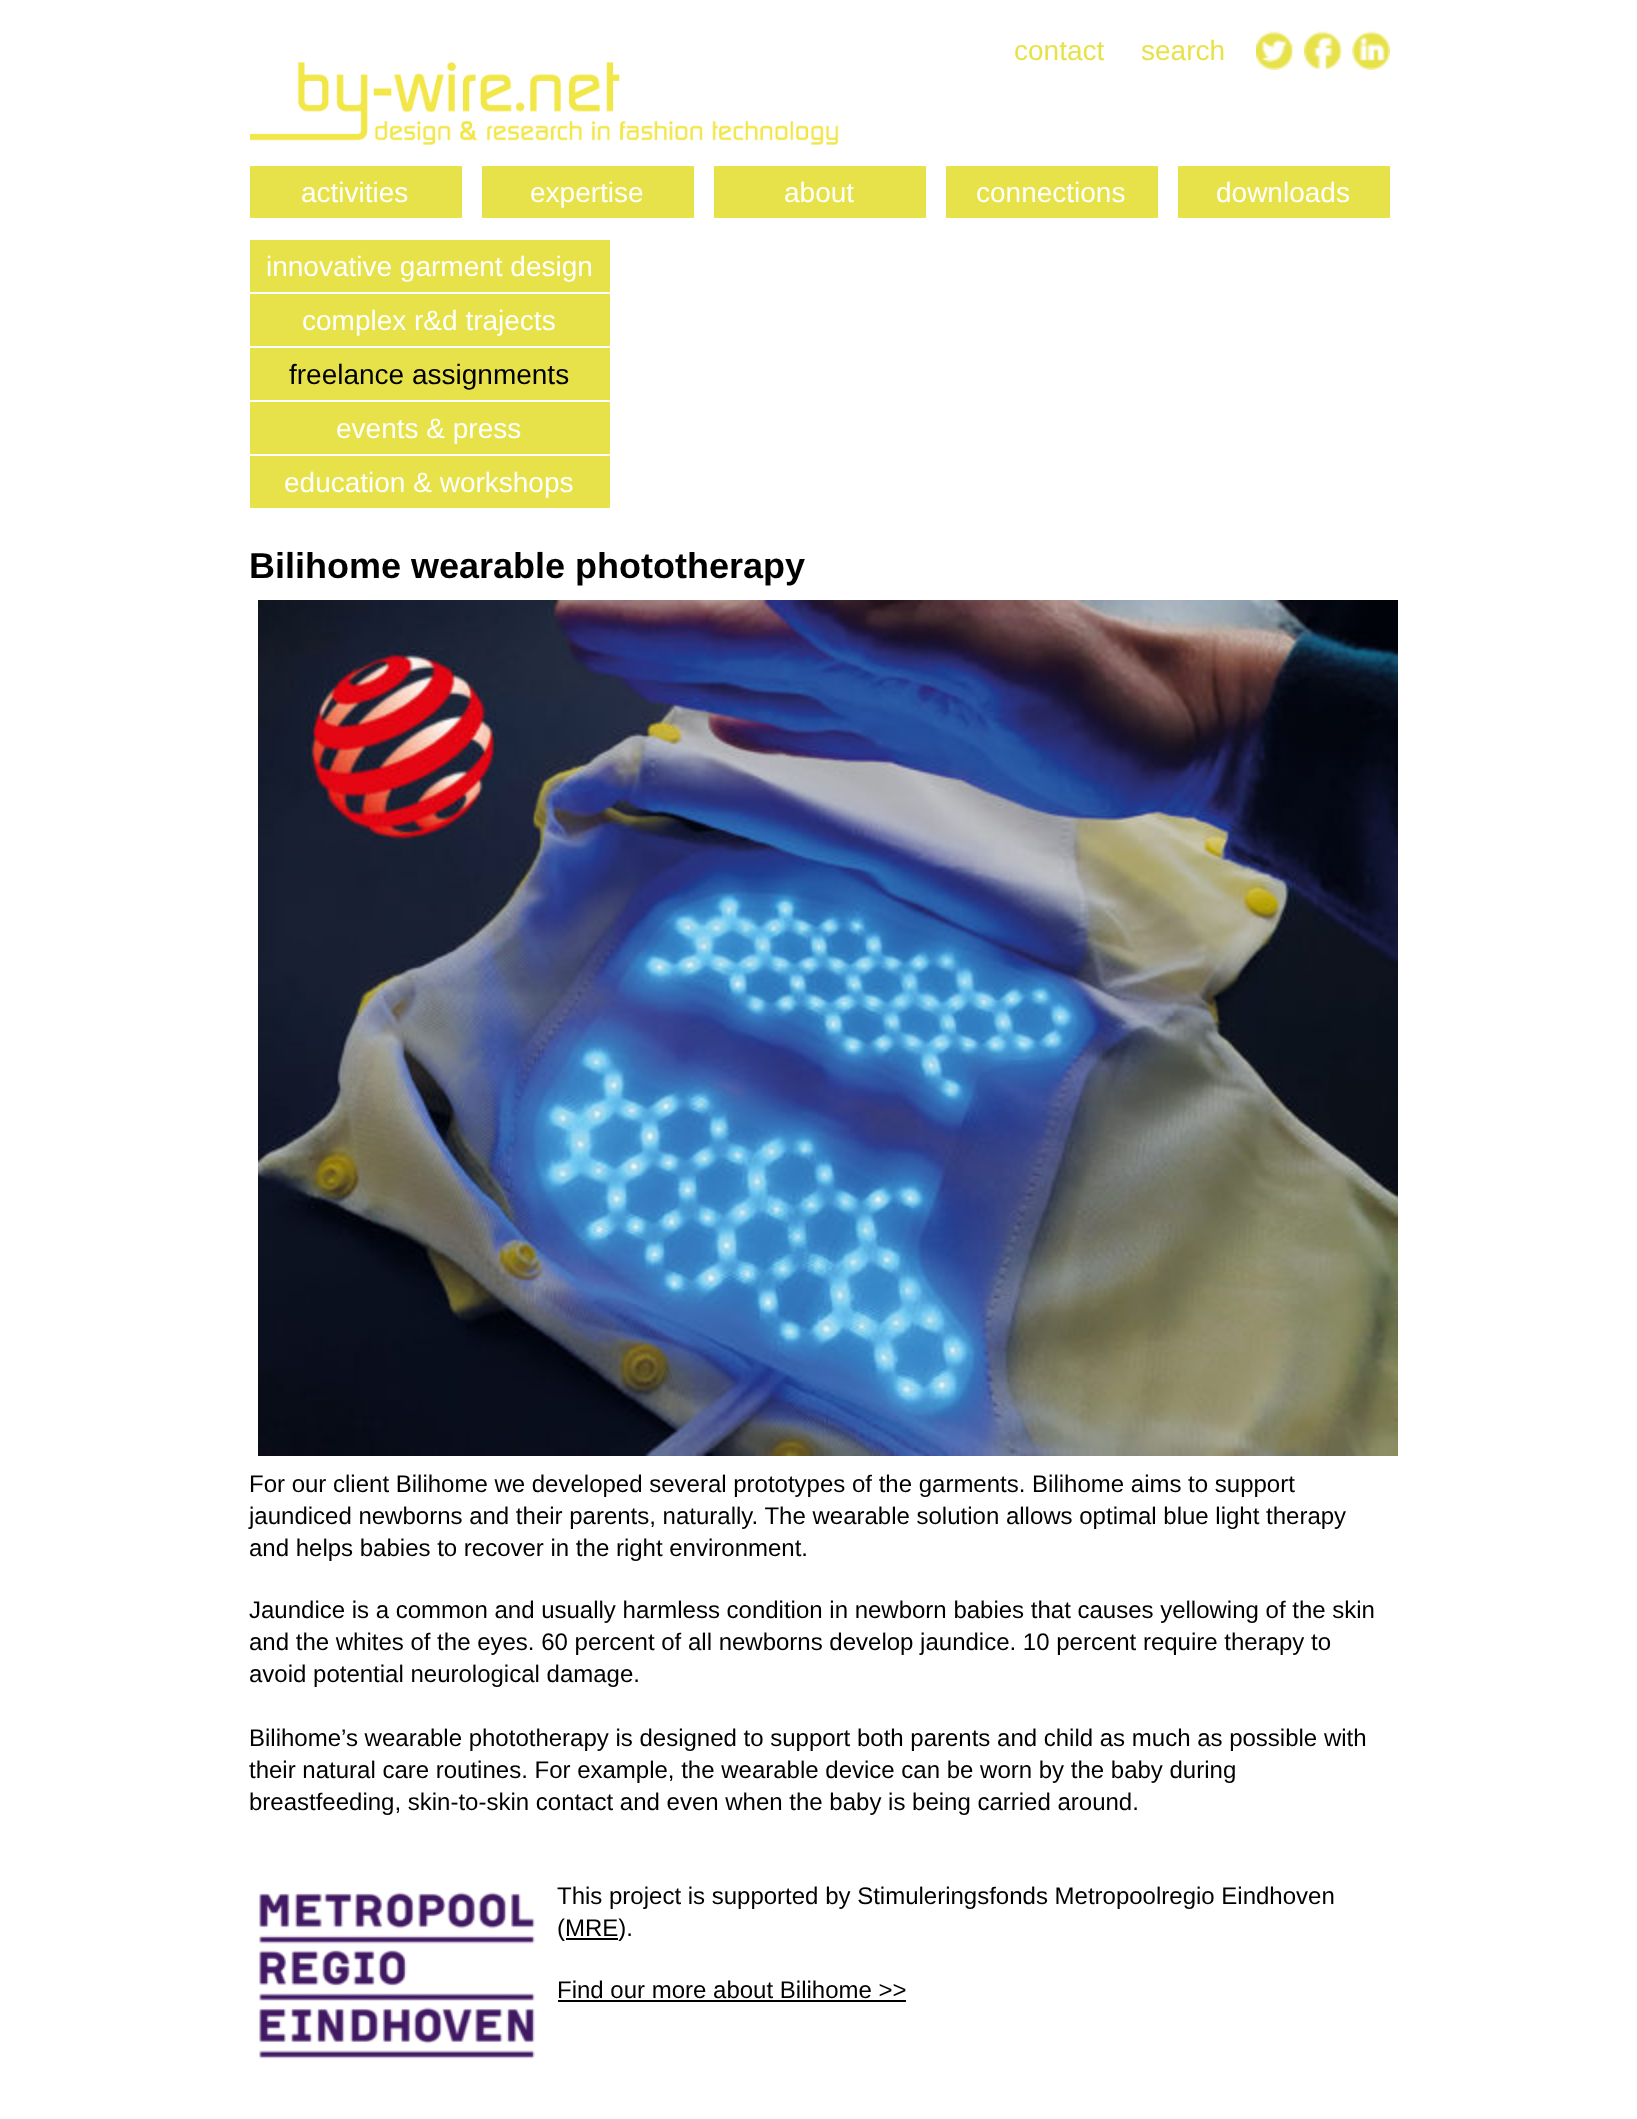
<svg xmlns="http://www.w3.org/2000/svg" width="1637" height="2119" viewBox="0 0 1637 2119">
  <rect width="100%" height="100%" fill="rgb(255,255,255)"/>
  <g font-family="Liberation Sans" font-size="28" fill="rgb(232,226,74)">
    <text x="1014" y="60">contact</text>
    <text x="1141" y="60">search</text>
  </g>
  <image x="1256" y="31" width="37" height="39" href="pic1.png"/>
  <image x="1304" y="31" width="38" height="39" href="pic2.png"/>
  <image x="1352" y="31" width="38" height="39" href="pic3.png"/>
  <image x="250" y="62" width="589" height="83" href="pic4.png"/>
  <rect x="250" y="166" width="212" height="52" fill="rgb(232,226,74)"/>
  <text x="301" y="202" font-family="Liberation Sans" font-size="28" fill="rgb(255,255,255)">activities</text>
  <rect x="482" y="166" width="212" height="52" fill="rgb(232,226,74)"/>
  <text x="530" y="202" font-family="Liberation Sans" font-size="28" fill="rgb(255,255,255)">expertise</text>
  <rect x="714" y="166" width="212" height="52" fill="rgb(232,226,74)"/>
  <text x="784" y="202" font-family="Liberation Sans" font-size="28" fill="rgb(255,255,255)">about</text>
  <rect x="946" y="166" width="212" height="52" fill="rgb(232,226,74)"/>
  <text x="976" y="202" font-family="Liberation Sans" font-size="28" fill="rgb(255,255,255)">connections</text>
  <rect x="1178" y="166" width="212" height="52" fill="rgb(232,226,74)"/>
  <text x="1216" y="202" font-family="Liberation Sans" font-size="28" fill="rgb(255,255,255)">downloads</text>
  <rect x="250" y="240" width="360" height="52" fill="rgb(232,226,74)"/>
  <text x="266" y="276" font-family="Liberation Sans" font-size="28" fill="rgb(255,255,255)">innovative garment design</text>
  <rect x="250" y="294" width="360" height="52" fill="rgb(232,226,74)"/>
  <text x="302" y="330" font-family="Liberation Sans" font-size="28" fill="rgb(255,255,255)">complex r&amp;d trajects</text>
  <rect x="250" y="348" width="360" height="52" fill="rgb(232,226,74)"/>
  <text x="289" y="384" font-family="Liberation Sans" font-size="28" fill="rgb(0,0,0)">freelance assignments</text>
  <rect x="250" y="402" width="360" height="52" fill="rgb(232,226,74)"/>
  <text x="336" y="438" font-family="Liberation Sans" font-size="28" fill="rgb(255,255,255)">events &amp; press</text>
  <rect x="250" y="456" width="360" height="52" fill="rgb(232,226,74)"/>
  <text x="284" y="492" font-family="Liberation Sans" font-size="28" fill="rgb(255,255,255)">education &amp; workshops</text>
  <text x="249" y="578" font-family="Liberation Sans" font-size="36" font-weight="bold" fill="rgb(0,0,0)">Bilihome wearable phototherapy</text>
  <image x="258" y="600" width="1140" height="856" href="pic5.png"/>
  <g font-family="Liberation Sans" font-size="24" fill="rgb(0,0,0)">
    <text>
      <tspan x="249" y="1492">For our client Bilihome we developed several prototypes of the garments. Bilihome aims to support</tspan>
      <tspan x="249" y="1524">jaundiced newborns and their parents, naturally. The wearable solution allows optimal blue light therapy</tspan>
      <tspan x="249" y="1556">and helps babies to recover in the right environment.</tspan>
    </text>
    <text>
      <tspan x="249" y="1618">Jaundice is a common and usually harmless condition in newborn babies that causes yellowing of the skin</tspan>
      <tspan x="249" y="1650">and the whites of the eyes. 60 percent of all newborns develop jaundice. 10 percent require therapy to</tspan>
      <tspan x="249" y="1682">avoid potential neurological damage.</tspan>
    </text>
    <text>
      <tspan x="249" y="1746">Bilihome’s wearable phototherapy is designed to support both parents and child as much as possible with</tspan>
      <tspan x="249" y="1778">their natural care routines. For example, the wearable device can be worn by the baby during</tspan>
      <tspan x="249" y="1810">breastfeeding, skin-to-skin contact and even when the baby is being carried around.</tspan>
    </text>
  </g>
  <image x="259" y="1892" width="276" height="167" href="pic6.png"/>
  <g font-family="Liberation Sans" font-size="24" fill="rgb(0,0,0)">
    <text>
      <tspan x="557" y="1904">This project is supported by Stimuleringsfonds Metropoolregio Eindhoven</tspan>
      <tspan x="557" y="1936">(MRE).</tspan>
    </text>
  </g>
  <rect x="566" y="1938" width="52" height="2" fill="rgb(0,0,0)"/>
  <text x="557" y="1998" font-family="Liberation Sans" font-size="24" fill="rgb(0,0,0)">Find our more about Bilihome &gt;&gt;</text>
  <rect x="558" y="2000" width="348" height="2" fill="rgb(0,0,0)"/>
</svg>
